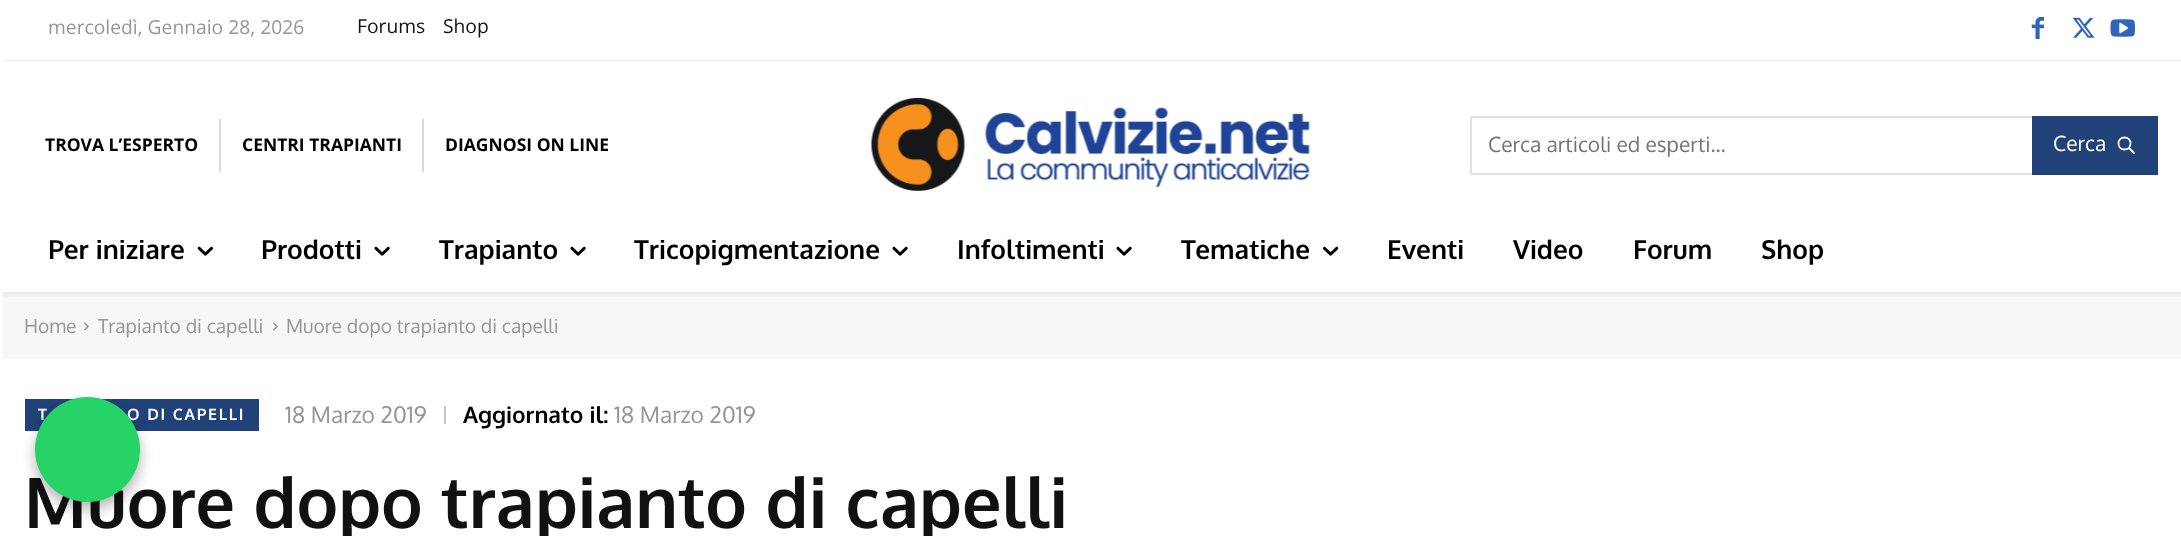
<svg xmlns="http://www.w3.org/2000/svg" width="2181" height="536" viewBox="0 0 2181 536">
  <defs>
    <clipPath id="clip1"><rect x="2" y="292" width="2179" height="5"/></clipPath>
  </defs>
  <rect width="100%" height="100%" fill="rgb(255,255,255)"/>
  <text x="48" y="34" font-family="Open Sans" font-size="19.25" fill="rgb(150,150,150)">mercoledì, Gennaio 28, 2026</text>
  <g font-family="Open Sans" font-size="19.25" fill="rgb(17,17,17)">
    <text x="357" y="33">Forums</text>
    <text x="443" y="33">Shop</text>
  </g>
  <image x="2031" y="17" width="13" height="22" href="pic1.png"/>
  <image x="2072" y="17" width="23" height="21" href="pic2.png"/>
  <image x="2110" y="19" width="25" height="18" href="pic3.png"/>
  <rect x="2" y="60" width="2179" height="1" fill="rgb(237,237,237)"/>
  <text x="45" y="151" font-family="Open Sans" font-size="17.5" font-weight="bold" fill="rgb(0,0,0)">TROVA L’ESPERTO</text>
  <rect x="422" y="119" width="2" height="53" fill="rgb(217,217,217)"/>
  <rect x="219" y="119" width="2" height="53" fill="rgb(217,217,217)"/>
  <g font-family="Open Sans" font-size="17.5" font-weight="bold" fill="rgb(0,0,0)">
    <text x="242" y="151">CENTRI TRAPIANTI</text>
    <text x="445" y="151">DIAGNOSI ON LINE</text>
  </g>
  <image x="871" y="98" width="439" height="93" href="pic4.png"/>
  <rect x="1471" y="117" width="686" height="57" fill="none" stroke="rgb(225,225,225)" stroke-width="2"/>
  <text x="1488" y="152" font-family="Oxygen" font-size="21" fill="rgb(117,117,117)">Cerca articoli ed esperti...</text>
  <rect x="2032" y="116" width="126" height="59" fill="rgb(33,66,120)"/>
  <text x="2053" y="151" font-family="Oxygen" font-size="21" fill="rgb(255,255,255)">Cerca</text>
  <path d="M2134 153L2129 148M2130.5 143.5C2130.5 151.5 2118.5 151.5 2118.5 143.5C2118.5 135.5 2130.5 135.5 2130.5 143.5Z" fill="none" stroke="rgb(255,255,255)" stroke-width="1.8" stroke-linecap="round" stroke-linejoin="round"/>
  <rect x="2" y="292" width="2179" height="67" fill="rgb(247,247,247)"/>
  <g clip-path="url(#clip1)">
    <rect x="2" y="212" width="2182" height="84" fill="rgba(0,0,0,0.05)" filter="blur(2.5px)"/>
  </g>
  <text x="48" y="259" font-family="Oxygen" font-size="26.25" font-weight="bold" fill="rgb(0,0,0)">Per iniziare</text>
  <image x="197" y="246" width="16" height="10" href="pic5.png"/>
  <text x="261" y="259" font-family="Oxygen" font-size="26.25" font-weight="bold" fill="rgb(0,0,0)">Prodotti</text>
  <image x="374" y="246" width="16" height="10" href="pic6.png"/>
  <text x="439" y="259" font-family="Oxygen" font-size="26.25" font-weight="bold" fill="rgb(0,0,0)">Trapianto</text>
  <image x="570" y="246" width="16" height="10" href="pic6.png"/>
  <text x="634" y="259" font-family="Oxygen" font-size="26.25" font-weight="bold" fill="rgb(0,0,0)">Tricopigmentazione</text>
  <image x="892" y="246" width="16" height="10" href="pic6.png"/>
  <text x="957" y="259" font-family="Oxygen" font-size="26.25" font-weight="bold" fill="rgb(0,0,0)">Infoltimenti</text>
  <image x="1116" y="246" width="16" height="10" href="pic6.png"/>
  <text x="1181" y="259" font-family="Oxygen" font-size="26.25" font-weight="bold" fill="rgb(0,0,0)">Tematiche</text>
  <image x="1323" y="246" width="16" height="10" href="pic7.png"/>
  <g font-family="Oxygen" font-size="26.25" font-weight="bold" fill="rgb(0,0,0)">
    <text x="1387" y="259">Eventi</text>
    <text x="1513" y="259">Video</text>
    <text x="1633" y="259">Forum</text>
    <text x="1761" y="259">Shop</text>
  </g>
  <text x="24" y="333" font-family="Oxygen" font-size="19.25" fill="rgb(150,150,150)">Home</text>
  <image x="84" y="322" width="5" height="9" href="pic8.png"/>
  <text x="98" y="333" font-family="Oxygen" font-size="19.25" fill="rgb(150,150,150)">Trapianto di capelli</text>
  <image x="273" y="322" width="5" height="9" href="pic8.png"/>
  <text x="286" y="333" font-family="Oxygen" font-size="19.25" fill="rgb(150,150,150)">Muore dopo trapianto di capelli</text>
  <rect x="25" y="399" width="234" height="32" fill="rgb(33,66,120)"/>
  <g font-family="Oxygen" font-size="15.75" font-weight="bold" letter-spacing="1.75" fill="rgb(255,255,255)">
    <text x="38" y="420">T</text>
    <text x="127" y="420">O DI CAPELLI</text>
  </g>
  <text x="285" y="423" font-family="Oxygen" font-size="22.75" fill="rgb(150,150,150)">18 Marzo 2019</text>
  <rect x="444" y="406" width="2" height="18" fill="rgb(196,196,196)"/>
  <text x="463" y="423" font-family="Oxygen" font-size="22.75" font-weight="bold" fill="rgb(0,0,0)">Aggiornato il:</text>
  <text x="614" y="423" font-family="Oxygen" font-size="22.75" fill="rgb(150,150,150)">18 Marzo 2019</text>
  <text x="24" y="528" font-family="Oxygen" font-size="70" font-weight="bold" fill="rgb(17,17,17)">Muore dopo trapianto di capelli</text>
  <rect x="35" y="404" width="105" height="105" rx="52.5" fill="rgba(0,0,0,0.3)" filter="blur(7px)"/>
  <circle cx="87.5" cy="449.5" r="52.5" fill="rgb(37,211,102)"/>
</svg>
